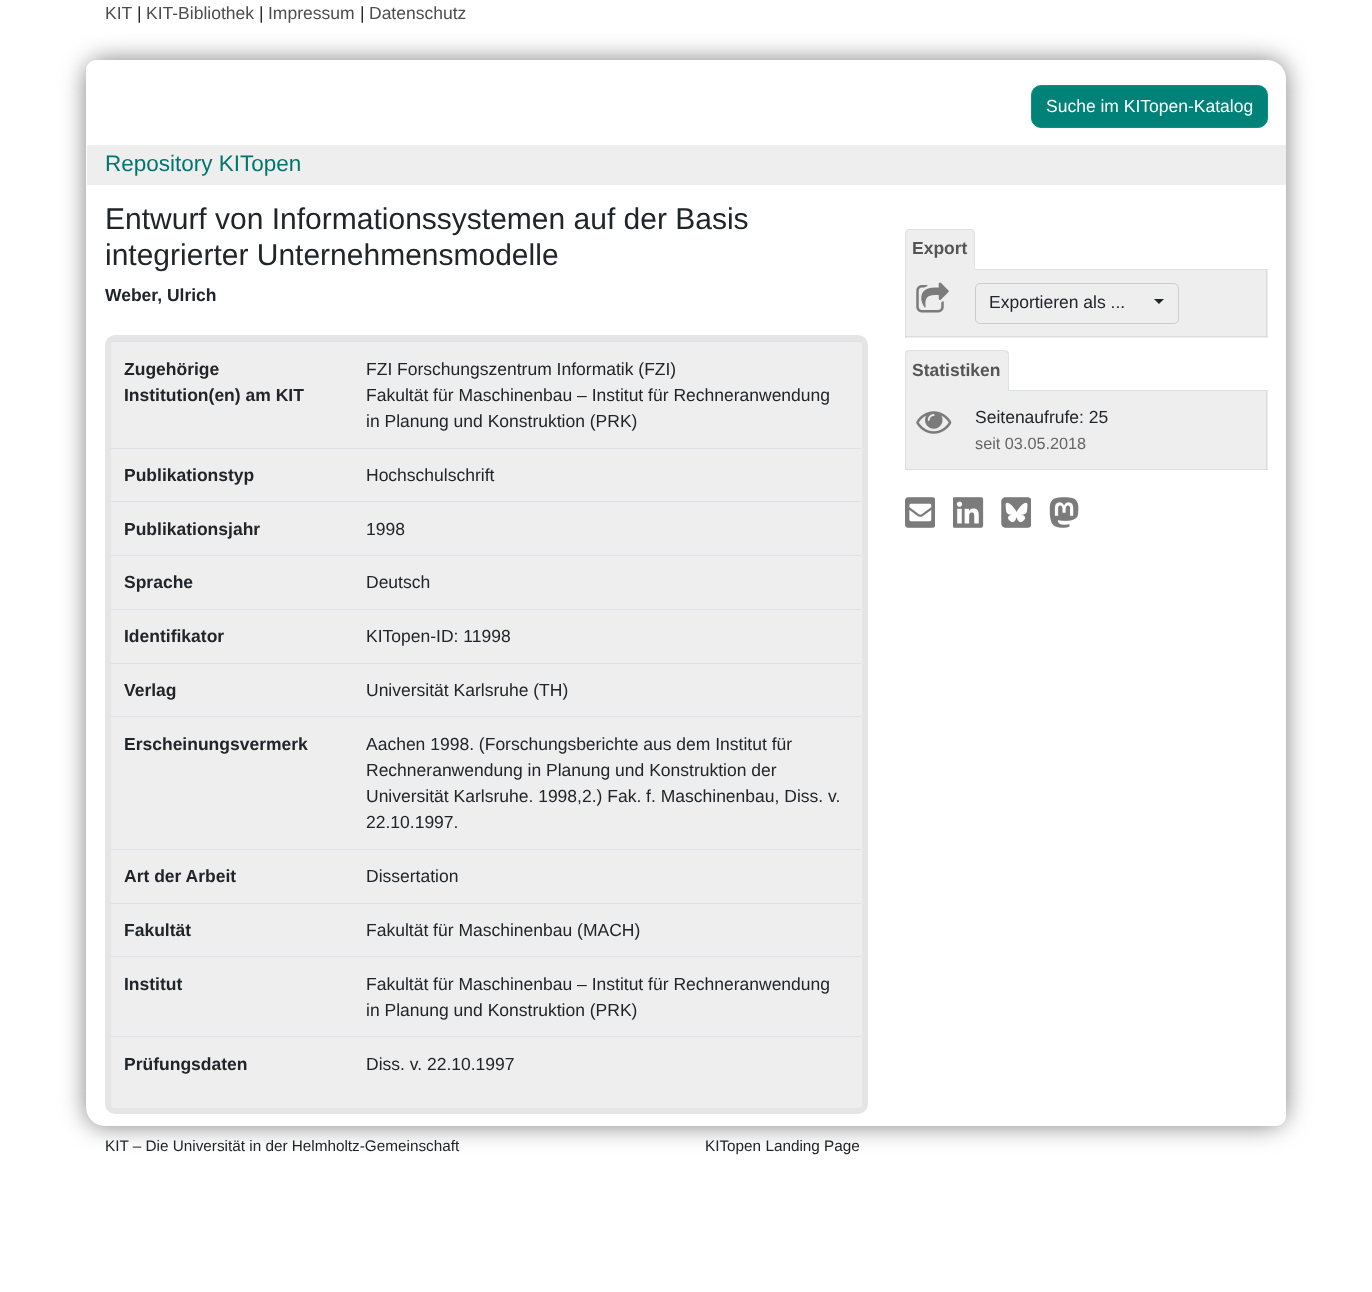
<svg xmlns="http://www.w3.org/2000/svg" width="1372" height="1292" viewBox="0 0 1372 1292">
  <defs>
    <clipPath id="clip1"><path d="M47 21H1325V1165H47ZM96 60H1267C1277.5 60 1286 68.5 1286 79V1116C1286 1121.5 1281.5 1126 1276 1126H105C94.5 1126 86 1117.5 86 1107V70C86 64.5 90.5 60 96 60Z" clip-rule="evenodd"/></clipPath>
  </defs>
  <rect width="100%" height="100%" fill="rgb(255,255,255)"/>
  <text x="105" y="19" font-family="Liberation Sans" font-size="17.5" fill="rgb(77,77,77)">KIT</text>
  <g clip-path="url(#clip1)">
    <rect x="86" y="60" width="1200" height="1066" rx="19" fill="rgb(128,128,128)" filter="blur(12.5px)"/>
  </g>
  <text x="137" y="19" font-family="Liberation Sans" font-size="17.5" fill="rgb(33,37,41)">|</text>
  <text x="146" y="19" font-family="Liberation Sans" font-size="17.5" fill="rgb(77,77,77)">KIT-Bibliothek</text>
  <text x="259" y="19" font-family="Liberation Sans" font-size="17.5" fill="rgb(33,37,41)">|</text>
  <text x="268" y="19" font-family="Liberation Sans" font-size="17.5" fill="rgb(77,77,77)">Impressum</text>
  <text x="360" y="19" font-family="Liberation Sans" font-size="17.5" fill="rgb(33,37,41)">|</text>
  <text x="369" y="19" font-family="Liberation Sans" font-size="17.5" fill="rgb(77,77,77)">Datenschutz</text>
  <rect x="1031.5" y="85.5" width="236" height="42" rx="9.5" fill="rgb(0,130,120)" stroke="rgb(0,150,130)"/>
  <text x="1046" y="112" font-family="Liberation Sans" font-size="17.5" fill="rgb(255,255,255)">Suche im KITopen-Katalog</text>
  <rect x="87" y="145" width="1199" height="40" fill="rgb(238,238,238)"/>
  <text x="105" y="171" font-family="Liberation Sans" font-size="22.5" fill="rgb(0,117,112)">Repository KITopen</text>
  <g font-family="Liberation Sans" font-size="30" fill="rgb(33,37,41)">
    <text>
      <tspan x="105" y="229">Entwurf von Informationssystemen auf der Basis</tspan>
      <tspan x="105" y="265">integrierter Unternehmensmodelle</tspan>
    </text>
  </g>
  <text x="105" y="301" font-family="Liberation Sans" font-size="17.5" font-weight="bold" fill="rgb(33,37,41)">Weber, Ulrich</text>
  <rect x="108" y="338" width="757" height="773" rx="7" fill="rgb(238,238,238)" stroke="rgb(229,229,229)" stroke-width="6"/>
  <g font-family="Liberation Sans" font-size="17.5" font-weight="bold" fill="rgb(33,37,41)">
    <text>
      <tspan x="124" y="375">Zugehörige</tspan>
      <tspan x="124" y="401">Institution(en) am KIT</tspan>
    </text>
  </g>
  <rect x="111" y="341" width="750" height="1" fill="rgb(222,226,230)"/>
  <g font-family="Liberation Sans" font-size="17.5" fill="rgb(33,37,41)">
    <text>
      <tspan x="366" y="375">FZI Forschungszentrum Informatik (FZI)</tspan>
      <tspan x="366" y="401">Fakultät für Maschinenbau – Institut für Rechneranwendung</tspan>
      <tspan x="366" y="427">in Planung und Konstruktion (PRK)</tspan>
    </text>
  </g>
  <text x="124" y="481" font-family="Liberation Sans" font-size="17.5" font-weight="bold" fill="rgb(33,37,41)">Publikationstyp</text>
  <rect x="111" y="448" width="750" height="1" fill="rgb(222,226,230)"/>
  <text x="366" y="481" font-family="Liberation Sans" font-size="17.5" fill="rgb(33,37,41)">Hochschulschrift</text>
  <text x="124" y="535" font-family="Liberation Sans" font-size="17.5" font-weight="bold" fill="rgb(33,37,41)">Publikationsjahr</text>
  <rect x="111" y="501" width="750" height="1" fill="rgb(222,226,230)"/>
  <text x="366" y="535" font-family="Liberation Sans" font-size="17.5" fill="rgb(33,37,41)">1998</text>
  <text x="124" y="588" font-family="Liberation Sans" font-size="17.5" font-weight="bold" fill="rgb(33,37,41)">Sprache</text>
  <rect x="111" y="555" width="750" height="1" fill="rgb(222,226,230)"/>
  <text x="366" y="588" font-family="Liberation Sans" font-size="17.5" fill="rgb(33,37,41)">Deutsch</text>
  <text x="124" y="642" font-family="Liberation Sans" font-size="17.5" font-weight="bold" fill="rgb(33,37,41)">Identifikator</text>
  <rect x="111" y="609" width="750" height="1" fill="rgb(222,226,230)"/>
  <text x="366" y="642" font-family="Liberation Sans" font-size="17.5" fill="rgb(33,37,41)">KITopen-ID: 11998</text>
  <text x="124" y="696" font-family="Liberation Sans" font-size="17.5" font-weight="bold" fill="rgb(33,37,41)">Verlag</text>
  <rect x="111" y="663" width="750" height="1" fill="rgb(222,226,230)"/>
  <text x="366" y="696" font-family="Liberation Sans" font-size="17.5" fill="rgb(33,37,41)">Universität Karlsruhe (TH)</text>
  <text x="124" y="750" font-family="Liberation Sans" font-size="17.5" font-weight="bold" fill="rgb(33,37,41)">Erscheinungsvermerk</text>
  <rect x="111" y="716" width="750" height="1" fill="rgb(222,226,230)"/>
  <g font-family="Liberation Sans" font-size="17.5" fill="rgb(33,37,41)">
    <text>
      <tspan x="366" y="750">Aachen 1998. (Forschungsberichte aus dem Institut für</tspan>
      <tspan x="366" y="776">Rechneranwendung in Planung und Konstruktion der</tspan>
      <tspan x="366" y="802">Universität Karlsruhe. 1998,2.) Fak. f. Maschinenbau, Diss. v.</tspan>
      <tspan x="366" y="828">22.10.1997.</tspan>
    </text>
  </g>
  <text x="124" y="882" font-family="Liberation Sans" font-size="17.5" font-weight="bold" fill="rgb(33,37,41)">Art der Arbeit</text>
  <rect x="111" y="849" width="750" height="1" fill="rgb(222,226,230)"/>
  <text x="366" y="882" font-family="Liberation Sans" font-size="17.5" fill="rgb(33,37,41)">Dissertation</text>
  <text x="124" y="936" font-family="Liberation Sans" font-size="17.5" font-weight="bold" fill="rgb(33,37,41)">Fakultät</text>
  <rect x="111" y="903" width="750" height="1" fill="rgb(222,226,230)"/>
  <text x="366" y="936" font-family="Liberation Sans" font-size="17.5" fill="rgb(33,37,41)">Fakultät für Maschinenbau (MACH)</text>
  <text x="124" y="990" font-family="Liberation Sans" font-size="17.5" font-weight="bold" fill="rgb(33,37,41)">Institut</text>
  <rect x="111" y="956" width="750" height="1" fill="rgb(222,226,230)"/>
  <g font-family="Liberation Sans" font-size="17.5" fill="rgb(33,37,41)">
    <text>
      <tspan x="366" y="990">Fakultät für Maschinenbau – Institut für Rechneranwendung</tspan>
      <tspan x="366" y="1016">in Planung und Konstruktion (PRK)</tspan>
    </text>
  </g>
  <text x="124" y="1070" font-family="Liberation Sans" font-size="17.5" font-weight="bold" fill="rgb(33,37,41)">Prüfungsdaten</text>
  <rect x="111" y="1036" width="750" height="1" fill="rgb(222,226,230)"/>
  <text x="366" y="1070" font-family="Liberation Sans" font-size="17.5" fill="rgb(33,37,41)">Diss. v. 22.10.1997</text>
  <rect x="975" y="269" width="293" height="1" fill="rgb(222,226,230)"/>
  <path d="M910 229H970C973 229 975 231 975 234V270H905V234C905 231 907 229 910 229Z" fill="rgb(238,238,238)"/>
  <path d="M909 229L906 230L907 231L909 230H971L973 231L974 230L971 229Z" fill="rgb(222,226,230)"/>
  <path d="M973.5 230C974.5 231 975 232 975 233V270L974 269V232.5L973 231Z" fill="rgb(222,226,230)"/>
  <path d="M975 270L974 269H906L905 270Z" fill="rgb(238,238,238)"/>
  <path d="M905 270L906 269V232.5L907 231L906.5 230C905.5 231 905 232 905 233Z" fill="rgb(222,226,230)"/>
  <text x="912" y="254" font-family="Liberation Sans" font-size="17.5" font-weight="bold" fill="rgb(85,85,85)">Export</text>
  <rect x="906" y="270" width="362" height="68" fill="rgb(238,238,238)"/>
  <rect x="1266" y="270" width="1" height="68" fill="rgb(221,221,221)"/>
  <rect x="905" y="336" width="363" height="1" fill="rgb(221,221,221)"/>
  <rect x="905" y="270" width="1" height="68" fill="rgb(221,221,221)"/>
  <image x="916" y="282" width="33" height="31" href="pic1.png"/>
  <rect x="975.5" y="283.5" width="203" height="40" rx="4.5" fill="none" stroke="rgb(204,204,204)"/>
  <text x="989" y="308" font-family="Liberation Sans" font-size="17.5" fill="rgb(33,37,41)">Exportieren als ...</text>
  <path d="M1154 299H1164L1159 304Z" fill="rgb(33,37,41)"/>
  <rect x="1009" y="390" width="259" height="1" fill="rgb(222,226,230)"/>
  <path d="M910 350H1004C1007 350 1009 352 1009 355V391H905V355C905 352 907 350 910 350Z" fill="rgb(238,238,238)"/>
  <path d="M909 350L906 351L907 352L909 351H1004C1005 351 1006 351 1007 352L1008 351L1004 350Z" fill="rgb(222,226,230)"/>
  <path d="M1009 391L1007.5 390H1008V354L1006.5 352L1007.5 351L1009 353Z" fill="rgb(222,226,230)"/>
  <path d="M905 354V391L906 390V354L907 352L906 351C905.5 352 905 353 905 354Z" fill="rgb(222,226,230)"/>
  <text x="912" y="376" font-family="Liberation Sans" font-size="17.5" font-weight="bold" fill="rgb(85,85,85)">Statistiken</text>
  <rect x="906" y="391" width="362" height="78" fill="rgb(238,238,238)"/>
  <rect x="1266" y="391" width="1" height="79" fill="rgb(221,221,221)"/>
  <rect x="905" y="469" width="363" height="1" fill="rgb(221,221,221)"/>
  <rect x="905" y="391" width="1" height="79" fill="rgb(221,221,221)"/>
  <image x="916" y="411" width="36" height="23" href="pic2.png"/>
  <text x="975" y="423" font-family="Liberation Sans" font-size="17.5" fill="rgb(33,37,41)">Seitenaufrufe: 25</text>
  <text x="975" y="449" font-family="Liberation Sans" font-size="16.25" fill="rgb(102,102,102)">seit 03.05.2018</text>
  <image x="905" y="497" width="30" height="31" href="pic3.png"/>
  <image x="953" y="497" width="31" height="31" href="pic4.png"/>
  <image x="1001" y="497" width="30" height="31" href="pic5.png"/>
  <image x="1049" y="497" width="30" height="31" href="pic6.png"/>
  <g font-family="Liberation Sans" font-size="15.3" fill="rgb(33,37,41)">
    <text x="105" y="1151">KIT – Die Universität in der Helmholtz-Gemeinschaft</text>
    <text x="705" y="1151">KITopen Landing Page</text>
  </g>
</svg>
